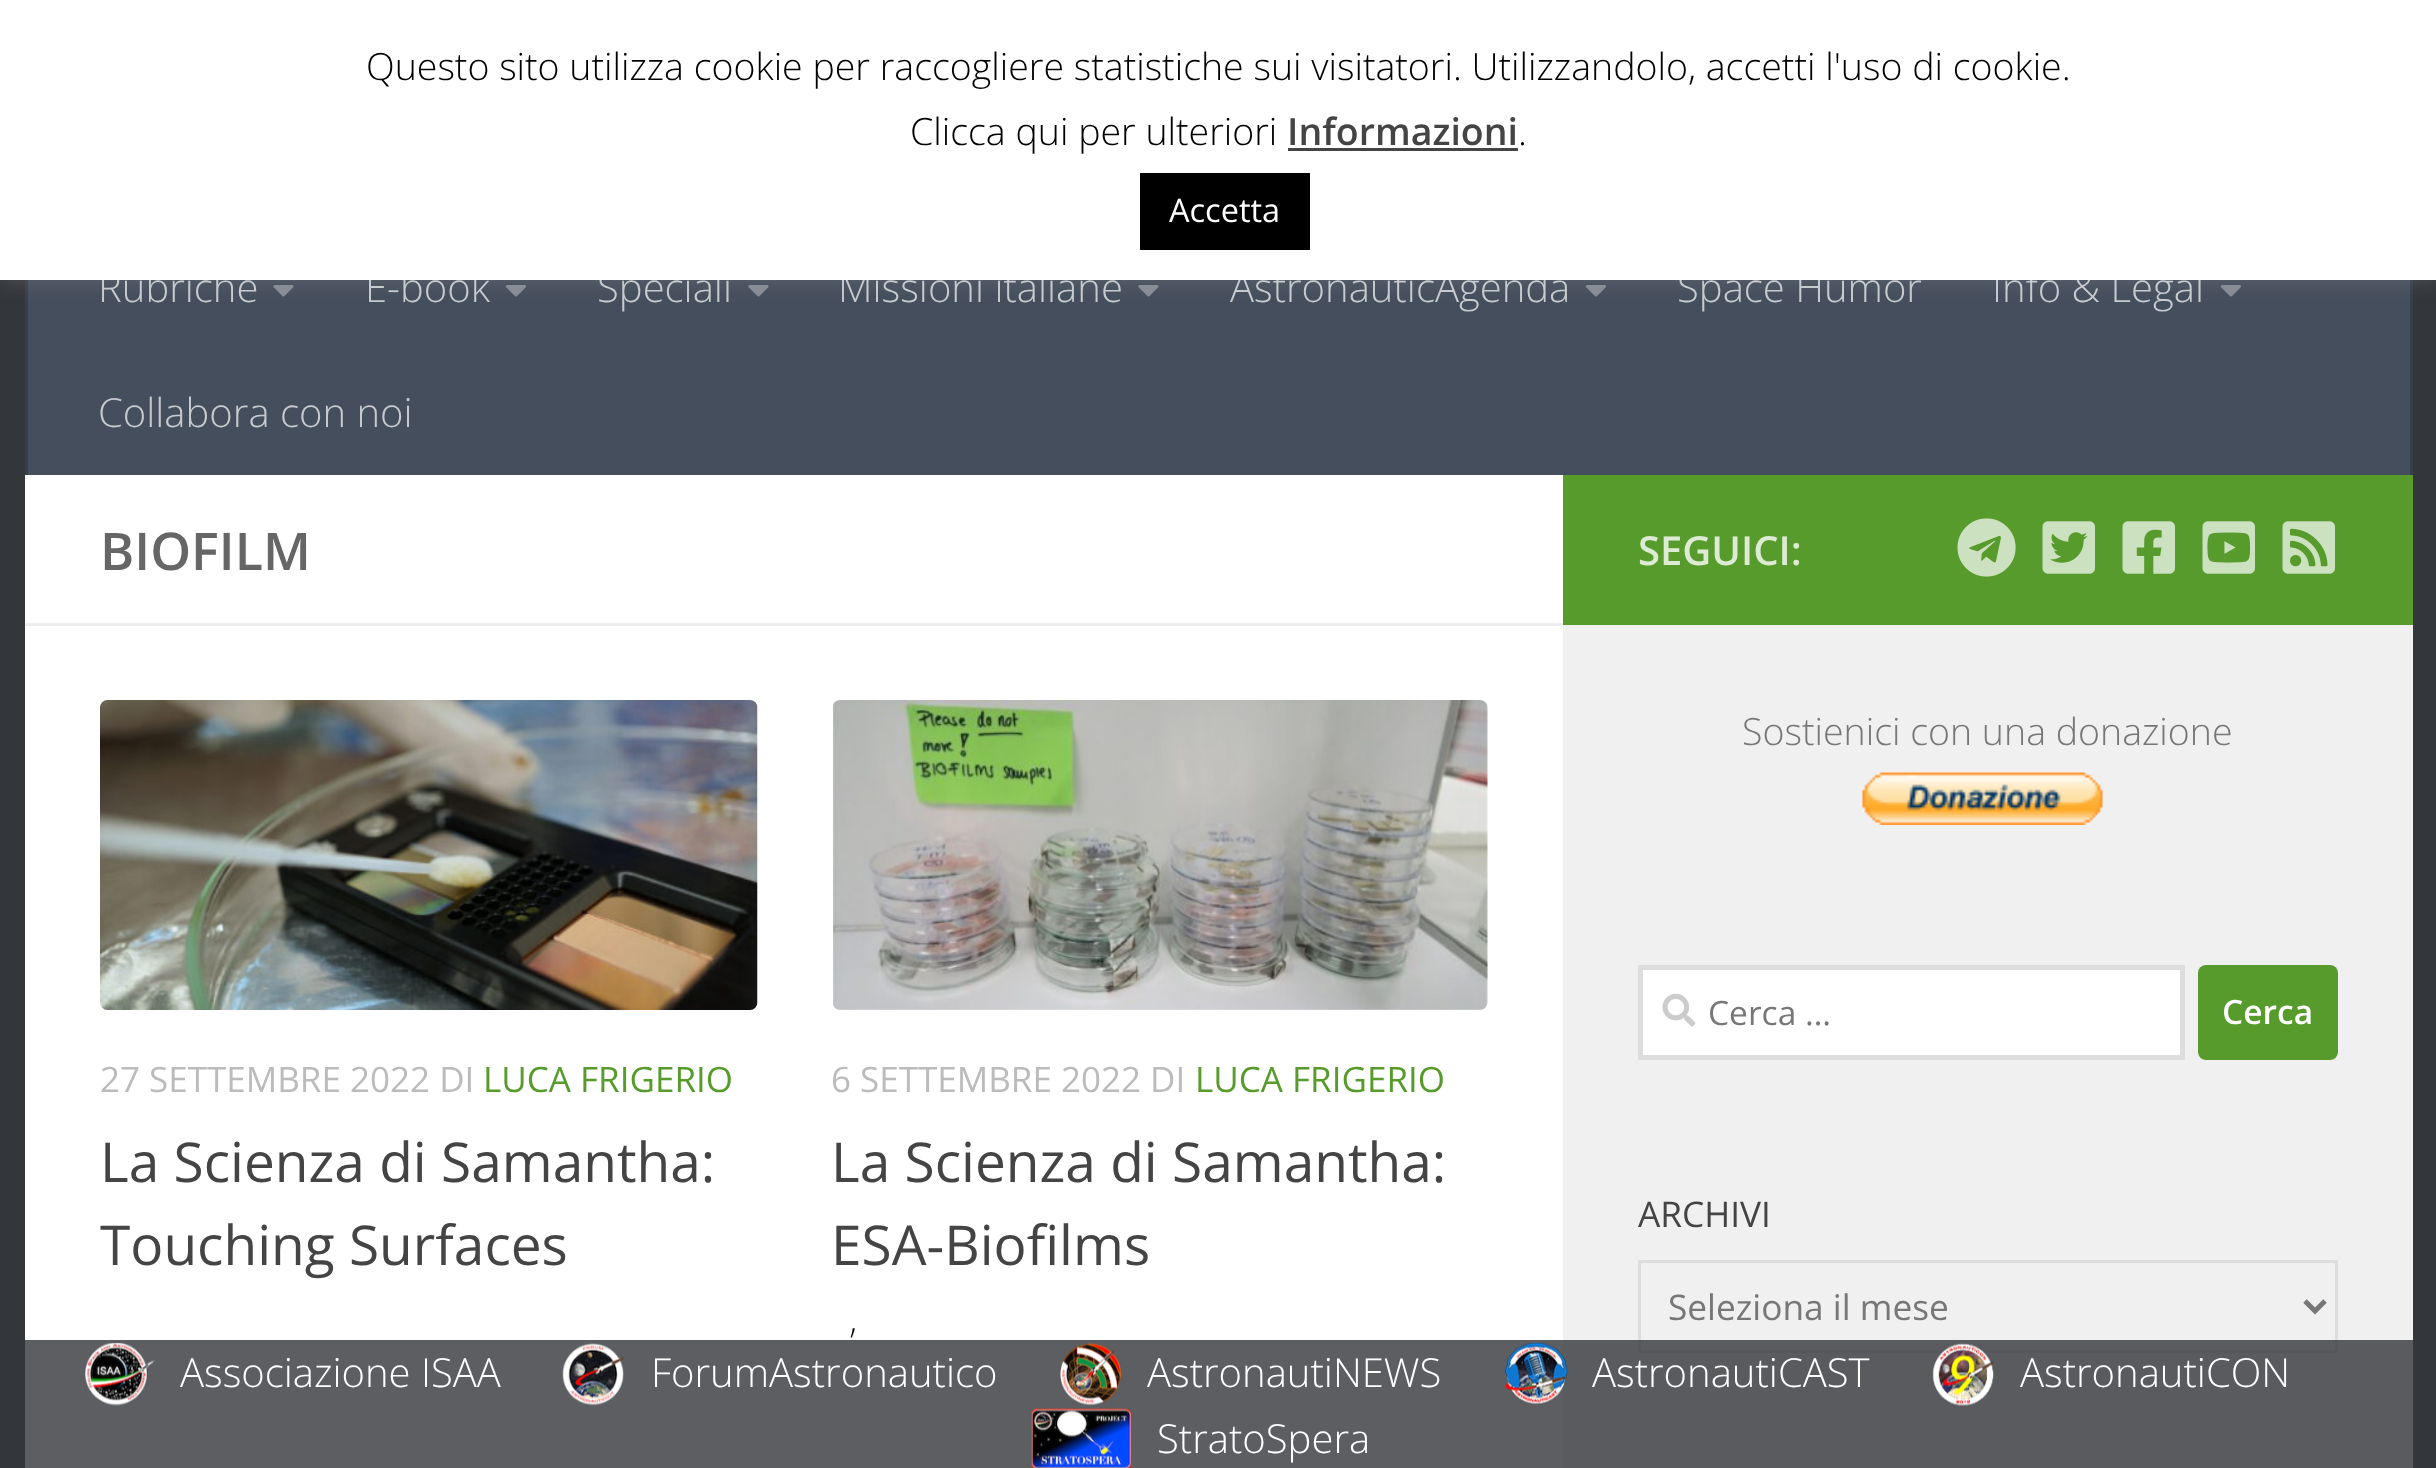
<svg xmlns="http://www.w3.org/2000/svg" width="2436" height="1468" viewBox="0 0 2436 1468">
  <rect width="100%" height="100%" fill="rgb(51,54,59)"/>
  <rect x="28" y="280" width="2382" height="195" fill="rgb(69,78,92)"/>
  <rect x="2410" y="280" width="3" height="195" fill="rgb(55,62,74)"/>
  <rect x="25" y="280" width="3" height="195" fill="rgb(55,62,74)"/>
  <image x="273" y="285" width="21" height="12" href="pic1.png"/>
  <image x="505" y="285" width="21" height="12" href="pic2.png"/>
  <image x="748" y="285" width="21" height="12" href="pic1.png"/>
  <image x="1138" y="285" width="21" height="12" href="pic1.png"/>
  <image x="1585" y="285" width="21" height="12" href="pic2.png"/>
  <image x="2220" y="285" width="21" height="12" href="pic2.png"/>
  <rect x="0" y="-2" width="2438" height="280" fill="rgba(172,171,171,0.3)" filter="blur(12.5px)"/>
  <g font-family="Open Sans" font-size="40" font-weight="300" fill="rgb(199,202,206)">
    <text x="98" y="302">Rubriche</text>
    <text x="365" y="302">E-book</text>
    <text x="597" y="302">Speciali</text>
    <text x="838" y="302">Missioni italiane</text>
    <text x="1230" y="302">AstronauticAgenda</text>
    <text x="1677" y="302">Space Humor</text>
    <text x="1992" y="302">Info &amp; Legal</text>
  </g>
  <rect x="0" y="0" width="2436" height="280" fill="rgb(255,255,255)"/>
  <g font-family="Open Sans" font-size="37.5" font-weight="300" fill="rgb(0,0,0)">
    <text x="366" y="80">Questo sito utilizza cookie per raccogliere statistiche sui visitatori. Utilizzandolo, accetti l'uso di cookie.</text>
    <text x="910" y="145">Clicca qui per ulteriori</text>
  </g>
  <text x="1287" y="145" font-family="Open Sans" font-size="37.5" font-weight="600" fill="rgb(68,68,68)">Informazioni</text>
  <rect x="1288" y="148" width="230" height="3" fill="rgb(68,68,68)"/>
  <text x="1518" y="145" font-family="Open Sans" font-size="37.5" font-weight="300" fill="rgb(0,0,0)">.</text>
  <rect x="1140" y="173" width="170" height="77" fill="rgb(0,0,0)"/>
  <text x="1169" y="222" font-family="Open Sans" font-size="32.5" fill="rgb(255,255,255)">Accetta</text>
  <text x="98" y="427" font-family="Open Sans" font-size="40" font-weight="300" fill="rgb(199,202,206)">Collabora con noi</text>
  <rect x="25" y="475" width="1538" height="993" fill="rgb(255,255,255)"/>
  <rect x="25" y="623" width="1538" height="3" fill="rgb(238,238,238)"/>
  <text x="100" y="570" font-family="Open Sans" font-size="52" font-weight="600" fill="rgb(102,102,102)">BIOFILM</text>
  <image x="100" y="700" width="658" height="310" href="pic3.png"/>
  <text x="100" y="1092" font-family="Open Sans" font-size="35" fill="rgb(187,187,187)">27 SETTEMBRE 2022 DI</text>
  <text x="483" y="1092" font-family="Open Sans" font-size="35" fill="rgb(86,155,43)">LUCA FRIGERIO</text>
  <g font-family="Open Sans" font-size="55" fill="rgb(68,68,68)">
    <text>
      <tspan x="100" y="1182">La Scienza di Samantha:</tspan>
      <tspan x="100" y="1265">Touching Surfaces</tspan>
    </text>
  </g>
  <image x="833" y="700" width="655" height="310" href="pic4.png"/>
  <text x="831" y="1092" font-family="Open Sans" font-size="35" fill="rgb(187,187,187)">6 SETTEMBRE 2022 DI</text>
  <text x="1195" y="1092" font-family="Open Sans" font-size="35" fill="rgb(86,155,43)">LUCA FRIGERIO</text>
  <g font-family="Open Sans" font-size="55" fill="rgb(68,68,68)">
    <text>
      <tspan x="831" y="1182">La Scienza di Samantha:</tspan>
      <tspan x="831" y="1265">ESA-Biofilms</tspan>
    </text>
  </g>
  <text x="850" y="1355" font-family="Open Sans" font-size="37.5" font-weight="300" fill="rgb(0,0,0)">’</text>
  <rect x="1563" y="475" width="850" height="150" fill="rgb(86,155,43)"/>
  <text x="1638" y="565" font-family="Open Sans" font-size="40" font-weight="600" fill="rgb(221,235,213)">SEGUICI:</text>
  <image x="1957" y="518" width="59" height="59" href="pic5.png"/>
  <image x="2042" y="521" width="53" height="53" href="pic6.png"/>
  <image x="2122" y="521" width="53" height="53" href="pic7.png"/>
  <image x="2202" y="521" width="53" height="53" href="pic8.png"/>
  <image x="2282" y="521" width="53" height="53" href="pic9.png"/>
  <rect x="1563" y="625" width="850" height="843" fill="rgb(240,240,240)"/>
  <text x="1742" y="745" font-family="Open Sans" font-size="37.5" font-weight="300" fill="rgb(119,119,119)">Sostienici con una donazione</text>
  <image x="1862" y="772" width="241" height="53" href="pic10.png"/>
  <rect x="1640.5" y="967.5" width="542" height="90" fill="rgb(255,255,255)" stroke="rgb(221,221,221)" stroke-width="5"/>
  <image x="1662" y="993" width="34" height="34" href="pic11.png"/>
  <text x="1708" y="1025" font-family="Open Sans" font-size="33.5" fill="rgb(119,119,119)">Cerca …</text>
  <rect x="2198" y="965" width="140" height="95" rx="8" fill="rgb(86,155,43)"/>
  <text x="2222" y="1024" font-family="Open Sans" font-size="33.5" font-weight="600" fill="rgb(255,255,255)">Cerca</text>
  <text x="1638" y="1227" font-family="Open Sans" font-size="35.25" fill="rgb(68,68,68)">ARCHIVI</text>
  <rect x="1639.5" y="1261.5" width="697" height="90" fill="none" stroke="rgb(221,221,221)" stroke-width="3"/>
  <path d="M2305 1301L2315 1311L2325 1301" fill="none" stroke="rgb(119,119,119)" stroke-width="5"/>
  <text x="1668" y="1320" font-family="Open Sans" font-size="35.25" fill="rgb(119,119,119)">Seleziona il mese</text>
  <rect x="25" y="1340" width="2388" height="128" fill="rgba(51,54,59,0.8)"/>
  <image x="85" y="1343" width="70" height="63" href="pic12.png"/>
  <text x="180" y="1387" font-family="Open Sans" font-size="40" font-weight="300" fill="rgb(255,255,255)">Associazione ISAA</text>
  <image x="562" y="1343" width="62" height="63" href="pic13.png"/>
  <text x="651" y="1387" font-family="Open Sans" font-size="40" font-weight="300" fill="rgb(255,255,255)">ForumAstronautico</text>
  <image x="1060" y="1343" width="62" height="63" href="pic14.png"/>
  <text x="1147" y="1387" font-family="Open Sans" font-size="40" font-weight="300" fill="rgb(255,255,255)">AstronautiNEWS</text>
  <image x="1505" y="1343" width="63" height="62" href="pic15.png"/>
  <text x="1592" y="1387" font-family="Open Sans" font-size="40" font-weight="300" fill="rgb(255,255,255)">AstronautiCAST</text>
  <image x="1932" y="1343" width="62" height="63" href="pic16.png"/>
  <text x="2020" y="1387" font-family="Open Sans" font-size="40" font-weight="300" fill="rgb(255,255,255)">AstronautiCON</text>
  <image x="1031" y="1408" width="101" height="60" href="pic17.png"/>
  <text x="1157" y="1453" font-family="Open Sans" font-size="40" font-weight="300" fill="rgb(255,255,255)">StratoSpera</text>
</svg>
